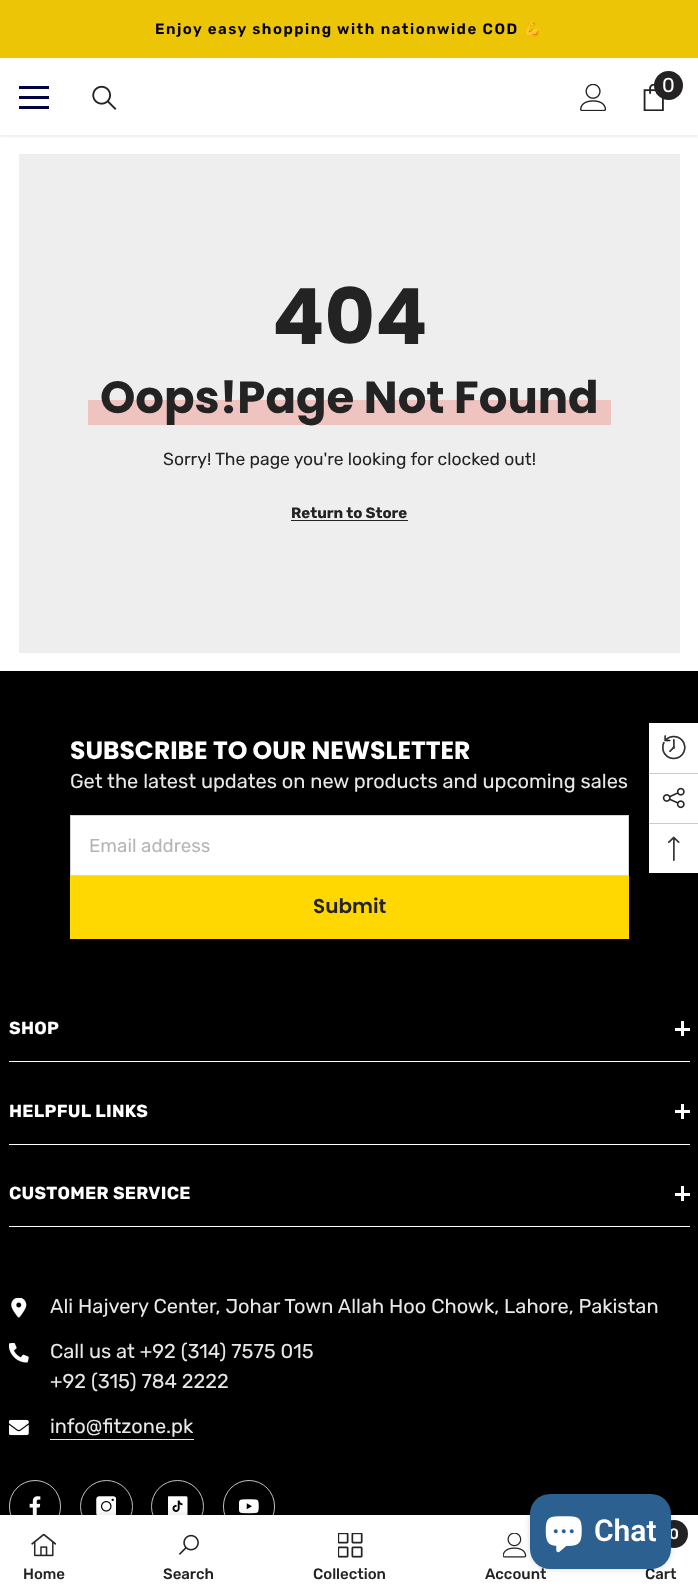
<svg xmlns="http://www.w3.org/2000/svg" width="698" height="1595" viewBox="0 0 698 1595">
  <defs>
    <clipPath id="clip1"><rect x="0" y="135" width="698" height="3"/></clipPath>
  </defs>
  <rect width="100%" height="100%" fill="rgb(255,255,255)"/>
  <rect x="0" y="0" width="698" height="58" fill="rgb(237,197,7)"/>
  <text x="155" y="34" font-family="Rubik" font-size="15" font-weight="600" letter-spacing="1.5" fill="rgb(0,0,0)">Enjoy easy shopping with nationwide COD</text>
  <text x="523" y="34" font-family="Noto Color Emoji" font-size="15" font-weight="bold" letter-spacing="1.5" fill="rgb(0,0,0)">💪</text>
  <g clip-path="url(#clip1)">
    <rect x="0" y="59" width="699" height="77" fill="rgba(0,0,0,0.1)" filter="blur(2px)"/>
  </g>
  <rect x="19" y="96" width="30" height="3" fill="rgb(2,4,65)"/>
  <rect x="19" y="86" width="30" height="3" fill="rgb(2,4,65)"/>
  <rect x="19" y="106" width="30" height="3" fill="rgb(2,4,65)"/>
  <image x="92" y="85" width="25" height="25" href="pic1.png"/>
  <image x="580" y="84" width="27" height="27" href="pic2.png"/>
  <image x="643" y="84" width="21" height="27" href="pic3.png"/>
  <circle cx="668.5" cy="85.5" r="14.5" fill="rgb(36,34,35)"/>
  <text x="662" y="92" font-family="Rubik" font-size="20" fill="rgb(255,255,255)">0</text>
  <rect x="19" y="154" width="661" height="499" fill="rgb(238,238,238)"/>
  <text x="272" y="344" font-family="Poppins" font-size="77.5" font-weight="bold" fill="rgb(35,35,35)">404</text>
  <rect x="88" y="400" width="523" height="25" fill="rgb(239,195,192)"/>
  <text x="100" y="413" font-family="Poppins" font-size="45" font-weight="bold" fill="rgb(35,35,35)">Oops!Page Not Found</text>
  <text x="163" y="465" font-family="Rubik" font-size="17.5" fill="rgb(35,35,35)">Sorry! The page you're looking for clocked out!</text>
  <text x="291" y="518" font-family="Rubik" font-size="15" font-weight="bold" fill="rgb(35,35,35)">Return to Store</text>
  <rect x="291" y="520" width="117" height="1" fill="rgb(35,35,35)"/>
  <rect x="0" y="671" width="698" height="844" fill="rgb(0,0,0)"/>
  <text x="70" y="759" font-family="Poppins" font-size="25" font-weight="bold" fill="rgb(255,255,255)">SUBSCRIBE TO OUR NEWSLETTER</text>
  <text x="70" y="788" font-family="Rubik" font-size="20" fill="rgb(232,232,232)">Get the latest updates on new products and upcoming sales</text>
  <rect x="70.5" y="815.5" width="558" height="60" fill="rgb(255,255,255)" stroke="rgb(213,213,213)"/>
  <text x="89" y="852" font-family="Rubik" font-size="18.75" fill="rgb(181,181,181)">Email address</text>
  <rect x="70" y="876" width="559" height="63" fill="rgb(255,216,1)"/>
  <text x="313" y="913" font-family="Poppins" font-size="20" font-weight="600" fill="rgb(35,35,35)">Submit</text>
  <rect x="9" y="1061" width="681" height="1" fill="rgb(255,255,255)"/>
  <text x="9" y="1034" font-family="Rubik" font-size="17.5" font-weight="bold" letter-spacing="0.3" fill="rgb(255,255,255)">SHOP</text>
  <rect x="681" y="1021" width="3" height="15" fill="rgb(255,255,255)"/>
  <rect x="675" y="1028" width="15" height="3" fill="rgb(255,255,255)"/>
  <rect x="9" y="1144" width="681" height="1" fill="rgb(255,255,255)"/>
  <text x="9" y="1117" font-family="Rubik" font-size="17.5" font-weight="bold" letter-spacing="0.3" fill="rgb(255,255,255)">HELPFUL LINKS</text>
  <rect x="681" y="1104" width="3" height="15" fill="rgb(255,255,255)"/>
  <rect x="675" y="1110" width="15" height="3" fill="rgb(255,255,255)"/>
  <rect x="9" y="1226" width="681" height="1" fill="rgb(255,255,255)"/>
  <text x="9" y="1199" font-family="Rubik" font-size="17.5" font-weight="bold" letter-spacing="0.3" fill="rgb(255,255,255)">CUSTOMER SERVICE</text>
  <rect x="681" y="1186" width="3" height="15" fill="rgb(255,255,255)"/>
  <rect x="675" y="1193" width="15" height="3" fill="rgb(255,255,255)"/>
  <image x="11" y="1298" width="16" height="20" href="pic4.png"/>
  <text x="50" y="1313" font-family="Rubik" font-size="20" fill="rgb(232,232,232)">Ali Hajvery Center, Johar Town Allah Hoo Chowk, Lahore, Pakistan</text>
  <image x="9" y="1343" width="20" height="20" href="pic5.png"/>
  <g font-family="Rubik" font-size="20" fill="rgb(232,232,232)">
    <text>
      <tspan x="50" y="1358">Call us at +92 (314) 7575 015</tspan>
      <tspan x="50" y="1388">+92 (315) 784 2222</tspan>
    </text>
  </g>
  <image x="9" y="1419" width="20" height="17" href="pic6.png"/>
  <text x="50" y="1433" font-family="Rubik" font-size="20" fill="rgb(232,232,232)">info@fitzone.pk</text>
  <rect x="50" y="1439" width="144" height="1" fill="rgb(232,232,232)"/>
  <rect x="9.5" y="1480.5" width="51" height="52" rx="25.5" fill="none" stroke="rgb(194,194,194)"/>
  <image x="29" y="1496" width="12" height="19" href="pic7.png"/>
  <circle cx="106.5" cy="1506.5" r="26" fill="none" stroke="rgb(194,194,194)"/>
  <image x="96" y="1496" width="20" height="19" href="pic8.png"/>
  <circle cx="177.5" cy="1506.5" r="26" fill="none" stroke="rgb(194,194,194)"/>
  <image x="168" y="1496" width="20" height="19" href="pic9.png"/>
  <rect x="223.5" y="1480.5" width="51" height="52" rx="25.5" fill="none" stroke="rgb(194,194,194)"/>
  <image x="239" y="1499" width="20" height="15" href="pic10.png"/>
  <rect x="0" y="1515" width="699" height="80" fill="rgba(0,0,0,0.12)" filter="blur(5.5px)"/>
  <rect x="0" y="1515" width="698" height="80" fill="rgb(255,255,255)"/>
  <image x="31" y="1533" width="25" height="24" href="pic11.png"/>
  <text x="23" y="1579" font-family="Rubik" font-size="15" font-weight="500" fill="rgb(35,35,35)">Home</text>
  <image x="178" y="1534" width="21" height="21" href="pic12.png"/>
  <text x="163" y="1579" font-family="Rubik" font-size="15" font-weight="500" fill="rgb(35,35,35)">Search</text>
  <image x="338" y="1533" width="25" height="25" href="pic13.png"/>
  <text x="313" y="1579" font-family="Rubik" font-size="15" font-weight="500" fill="rgb(35,35,35)">Collection</text>
  <image x="503" y="1533" width="24" height="25" href="pic14.png"/>
  <text x="485" y="1579" font-family="Rubik" font-size="15" font-weight="500" fill="rgb(35,35,35)">Account</text>
  <circle cx="674" cy="1534" r="14" fill="rgb(35,35,35)"/>
  <text x="669" y="1539" font-family="Rubik" font-size="15" font-weight="500" fill="rgb(255,255,255)">0</text>
  <text x="645" y="1579" font-family="Rubik" font-size="15" font-weight="500" fill="rgb(35,35,35)">Cart</text>
  <rect x="649" y="723" width="49" height="150" fill="rgb(255,255,255)"/>
  <image x="662" y="735" width="24" height="25" href="pic15.png"/>
  <rect x="649" y="773" width="49" height="1" fill="rgb(204,204,204)"/>
  <image x="662" y="787" width="23" height="22" href="pic16.png"/>
  <rect x="649" y="823" width="49" height="1" fill="rgb(204,204,204)"/>
  <image x="668" y="836" width="12" height="25" href="pic17.png"/>
  <rect x="530" y="1494" width="141" height="75" rx="20" fill="rgba(0,0,0,0.15)" filter="blur(3px)"/>
  <rect x="530" y="1494" width="141" height="75" rx="20" fill="rgb(43,96,144)"/>
  <image x="545" y="1516" width="37" height="37" href="pic18.png"/>
  <text x="594" y="1541" font-family="Roboto" font-size="30" font-weight="600" fill="rgb(255,255,255)">Chat</text>
</svg>
